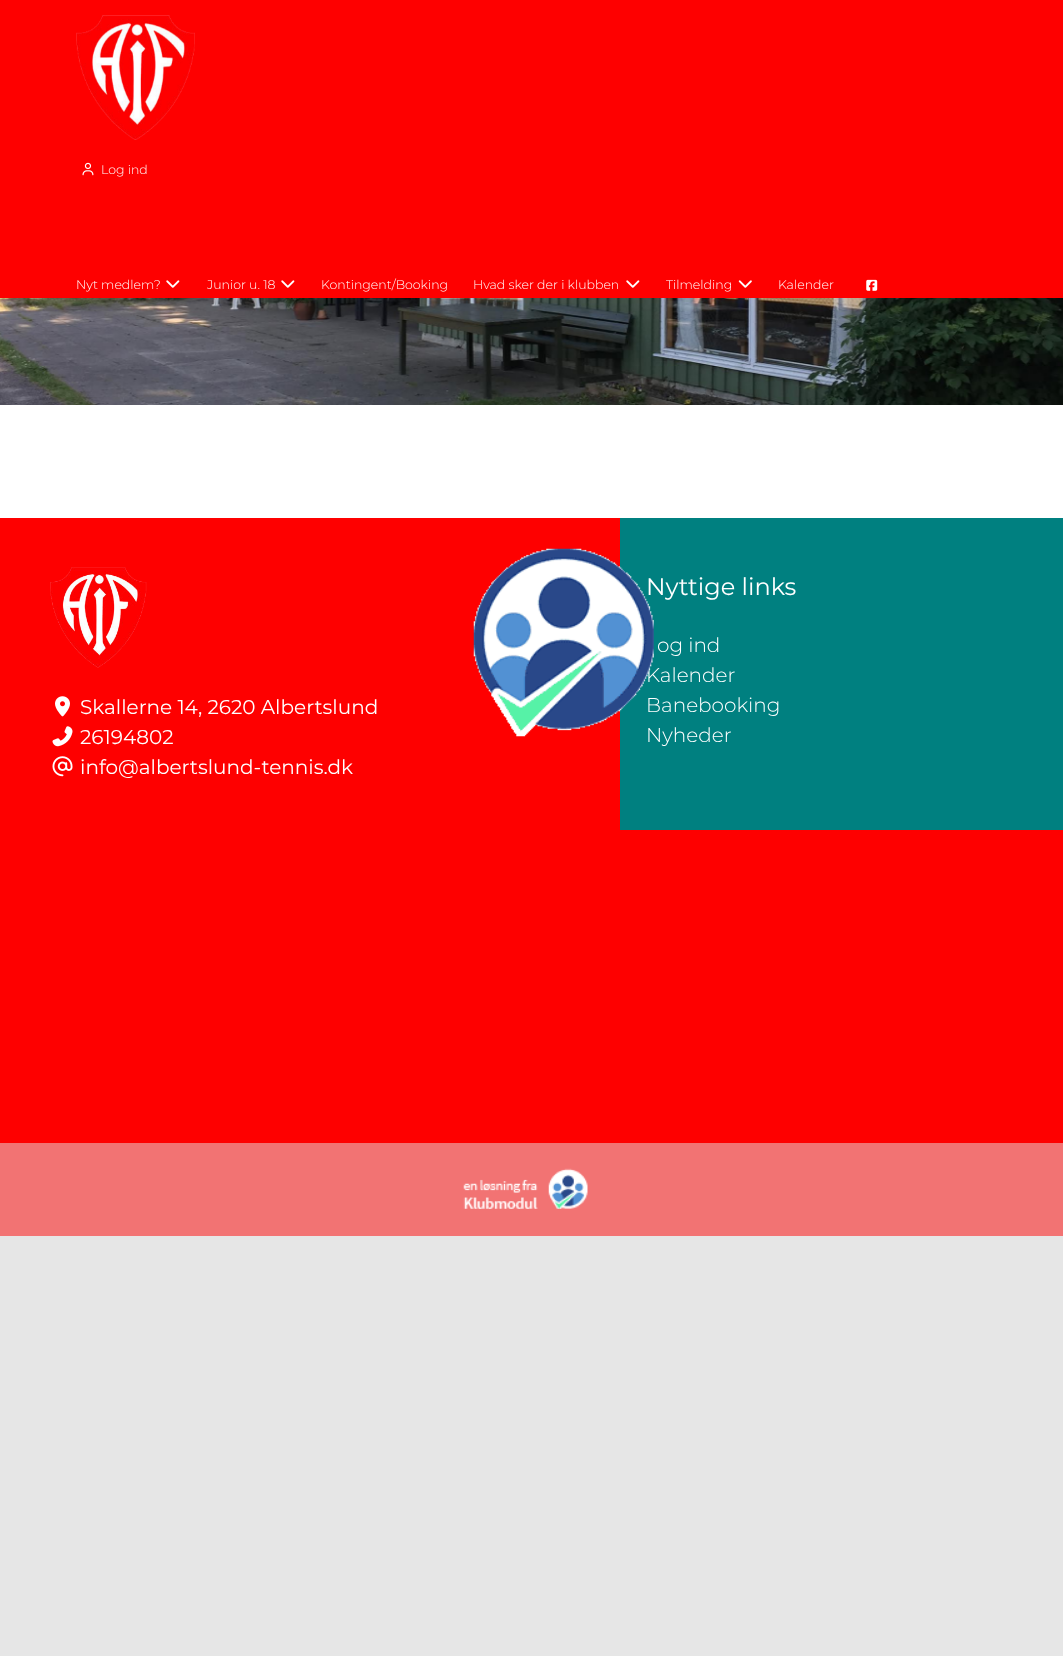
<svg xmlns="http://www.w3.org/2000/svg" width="1063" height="1656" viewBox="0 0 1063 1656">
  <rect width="100%" height="100%" fill="rgb(230,230,230)"/>
  <rect x="0" y="0" width="1063" height="298" fill="rgb(254,0,0)"/>
  <image x="76" y="15" width="119" height="125" href="pic1.png"/>
  <image x="82" y="162" width="12" height="14" href="pic2.png"/>
  <g font-family="Montserrat" font-size="12.5" font-weight="300" fill="rgb(255,255,255)">
    <text x="101" y="174">Log ind</text>
    <text x="76" y="289">Nyt medlem?</text>
  </g>
  <image x="166" y="280" width="14" height="8" href="pic3.png"/>
  <text x="207" y="289" font-family="Montserrat" font-size="12.5" font-weight="300" fill="rgb(255,255,255)">Junior u. 18</text>
  <image x="281" y="280" width="14" height="8" href="pic3.png"/>
  <g font-family="Montserrat" font-size="12.5" font-weight="300" fill="rgb(255,255,255)">
    <text x="321" y="289">Kontingent/Booking</text>
    <text x="473" y="289">Hvad sker der i klubben</text>
  </g>
  <image x="626" y="280" width="14" height="8" href="pic3.png"/>
  <text x="666" y="289" font-family="Montserrat" font-size="12.5" font-weight="300" fill="rgb(255,255,255)">Tilmelding</text>
  <image x="738" y="280" width="14" height="8" href="pic4.png"/>
  <text x="778" y="289" font-family="Montserrat" font-size="12.5" font-weight="300" fill="rgb(255,255,255)">Kalender</text>
  <image x="866" y="279" width="12" height="12" href="pic5.png"/>
  <image x="0" y="298" width="1063" height="107" href="pic6.png"/>
  <rect x="0" y="405" width="1063" height="113" fill="rgb(255,255,255)"/>
  <rect x="0" y="518" width="1063" height="625" fill="rgb(254,0,0)"/>
  <rect x="620" y="518" width="443" height="312" fill="rgb(0,128,128)"/>
  <text x="646" y="595" font-family="Montserrat" font-size="24" fill="rgb(255,255,255)">Nyttige links</text>
  <g font-family="Montserrat" font-size="20" font-weight="300" fill="rgb(255,255,255)">
    <text>
      <tspan x="646" y="682">Kalender</tspan>
      <tspan x="646" y="712">Banebooking</tspan>
      <tspan x="646" y="742">Nyheder</tspan>
    </text>
  </g>
  <image x="473" y="548" width="181" height="189" href="pic7.png"/>
  <image x="50" y="567" width="97" height="101" href="pic8.png"/>
  <image x="55" y="696" width="15" height="21" href="pic9.png"/>
  <g font-family="Montserrat" font-size="20" fill="rgb(255,255,255)">
    <text x="80" y="714">Skallerne 14</text>
    <text x="198" y="714">, 2620 Albertslund</text>
  </g>
  <image x="52" y="726" width="21" height="21" href="pic10.png"/>
  <text x="80" y="744" font-family="Montserrat" font-size="20" fill="rgb(255,255,255)">26194802</text>
  <image x="52" y="756" width="21" height="21" href="pic11.png"/>
  <text x="80" y="774" font-family="Montserrat" font-size="20" fill="rgb(255,255,255)">info@albertslund-tennis.dk</text>
  <text x="657" y="652" font-family="Montserrat" font-size="20" font-weight="300" fill="rgb(255,255,255)">og ind</text>
  <rect x="0" y="1143" width="1063" height="93" fill="rgb(242,115,115)"/>
  <image x="463" y="1168" width="125" height="41" href="pic12.png"/>
</svg>
